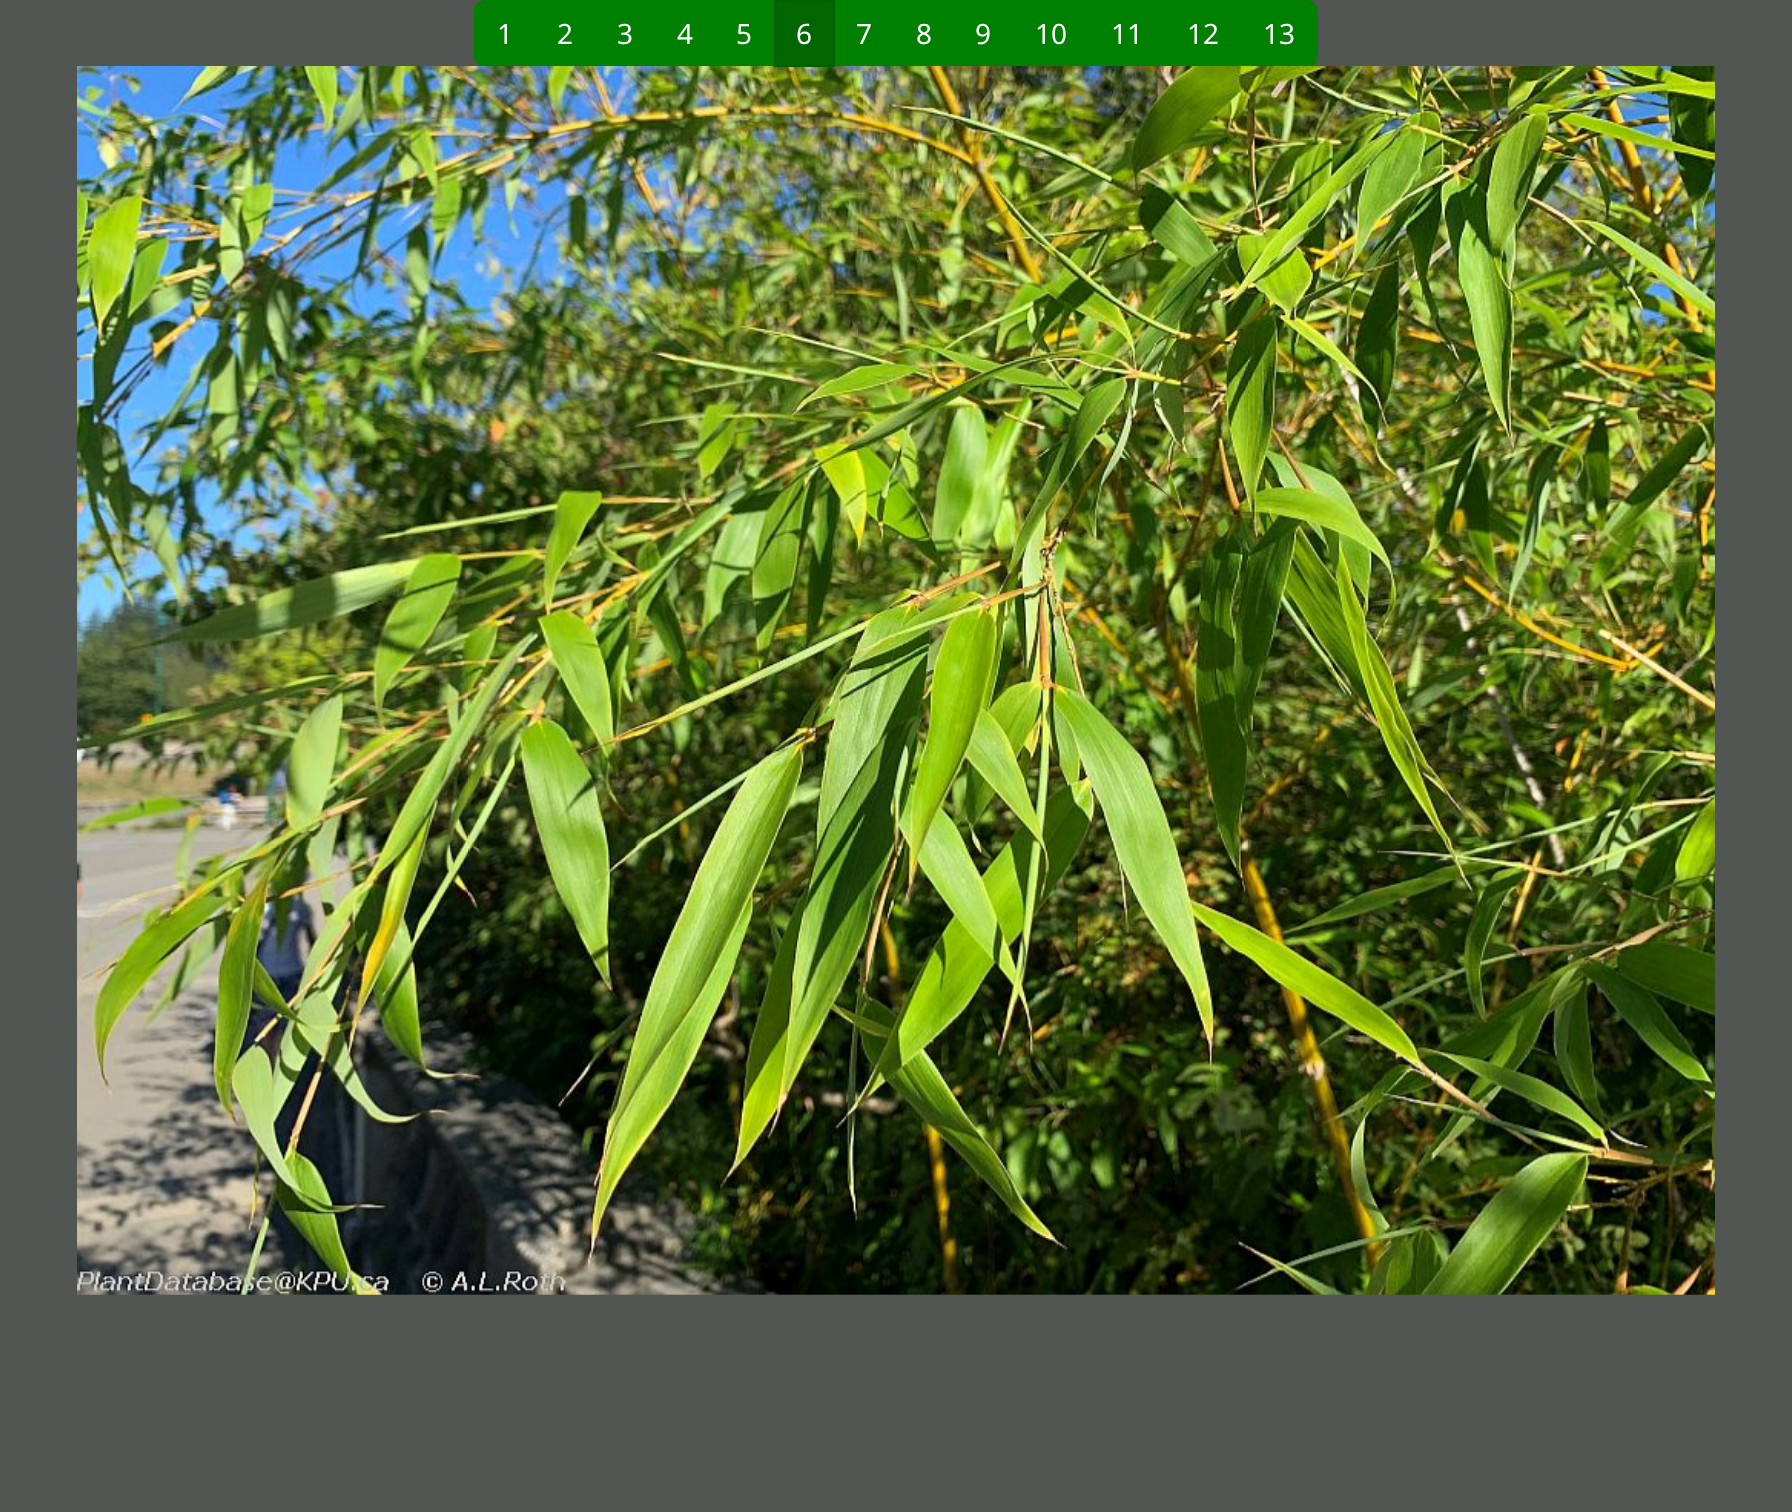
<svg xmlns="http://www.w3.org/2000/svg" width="1792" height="1512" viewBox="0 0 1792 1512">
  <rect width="100%" height="100%" fill="rgb(81,86,82)"/>
  <path d="M485 1H535V66H485C479.5 66 475 61.5 475 56V11C475 5.5 479.5 1 485 1Z" fill="rgb(0,128,0)" stroke="rgb(0,128,0)" stroke-width="2"/>
  <text x="497" y="44" font-family="Noto Sans" font-size="28" fill="rgb(255,255,255)">1</text>
  <rect x="536" y="0" width="238" height="66" fill="rgb(0,128,0)"/>
  <g font-family="Noto Sans" font-size="28" fill="rgb(255,255,255)">
    <text x="557" y="44">2</text>
    <text x="617" y="44">3</text>
    <text x="677" y="44">4</text>
    <text x="736" y="44">5</text>
  </g>
  <path d="M1242 1H1307C1312.5 1 1317 5.5 1317 11V56C1317 61.5 1312.5 66 1307 66H1242Z" fill="rgb(0,128,0)" stroke="rgb(0,128,0)" stroke-width="2"/>
  <image x="77" y="66" width="1638" height="1229" href="pic1.png"/>
  <rect x="775" y="1" width="59" height="65" fill="rgb(0,102,0)" stroke="rgb(0,96,0)" stroke-width="2"/>
  <text x="796" y="44" font-family="Noto Sans" font-size="28" fill="rgb(255,255,255)">6</text>
  <rect x="835" y="0" width="406" height="66" fill="rgb(0,128,0)"/>
  <g font-family="Noto Sans" font-size="28" fill="rgb(255,255,255)">
    <text x="856" y="44">7</text>
    <text x="916" y="44">8</text>
    <text x="975" y="44">9</text>
    <text x="1035" y="44">10</text>
    <text x="1111" y="44">11</text>
    <text x="1187" y="44">12</text>
    <text x="1263" y="44">13</text>
  </g>
</svg>
